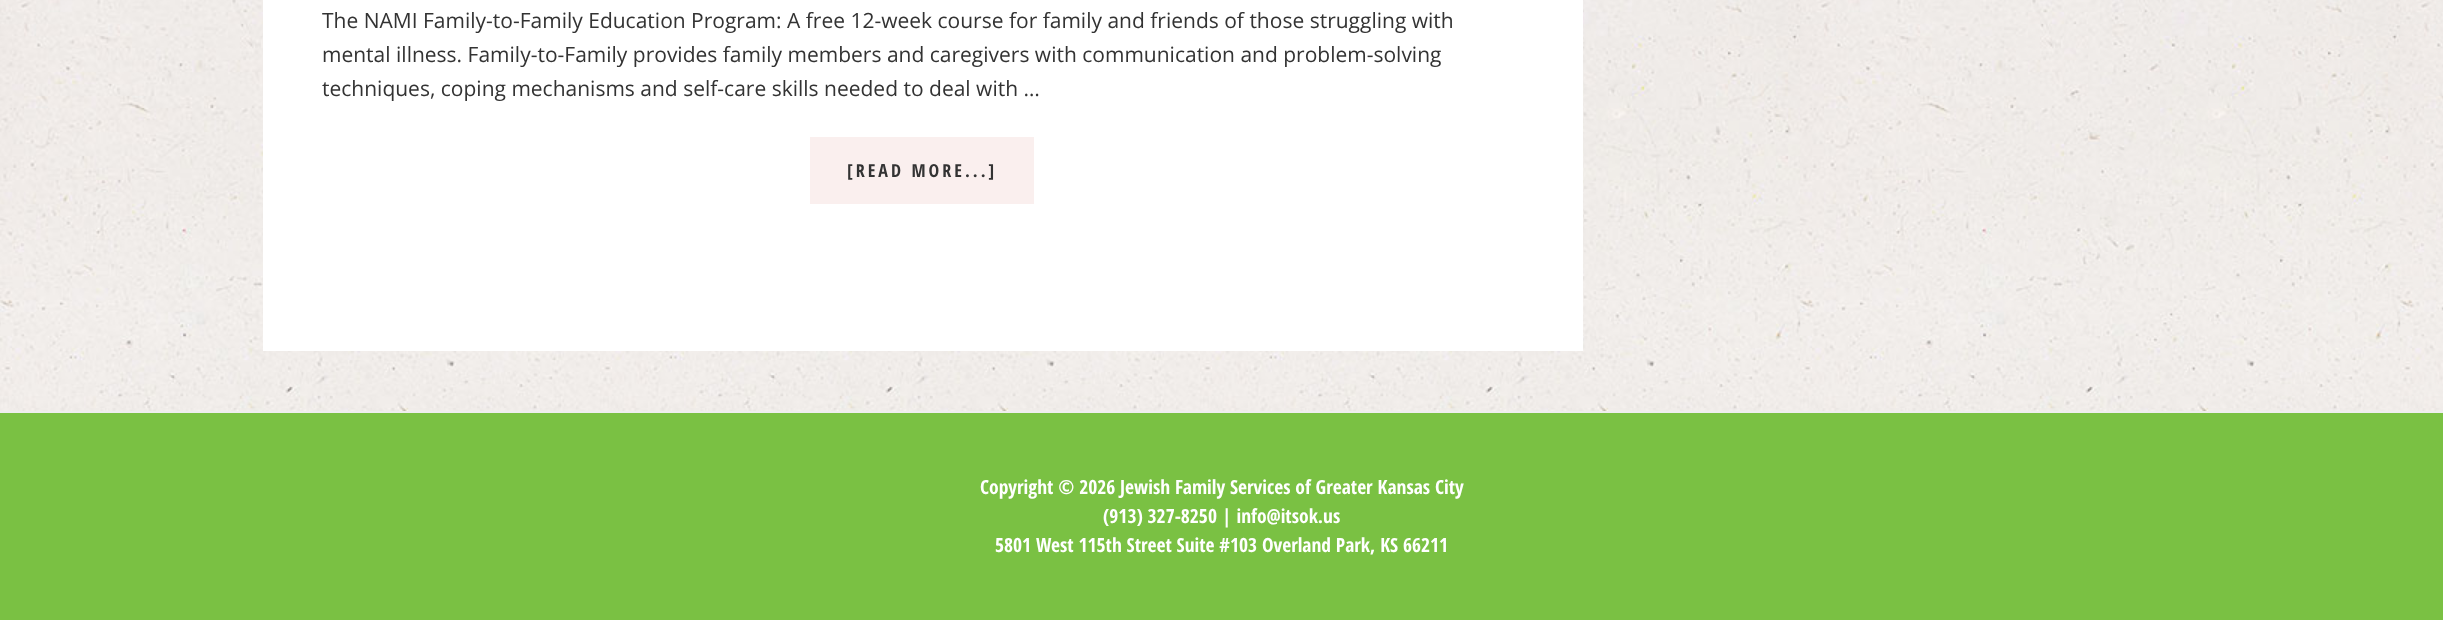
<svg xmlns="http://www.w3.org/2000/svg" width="2443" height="620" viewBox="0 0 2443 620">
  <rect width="100%" height="100%" fill="rgb(255,255,255)"/>
  <image x="0" y="0" width="2443" height="411" href="pic1.png"/>
  <rect x="263" y="0" width="1320" height="351" fill="rgb(255,255,255)"/>
  <g font-family="Open Sans" font-size="21" fill="rgb(51,51,51)">
    <text>
      <tspan x="322" y="28">The NAMI Family-to-Family Education Program: A free 12-week course for family and friends of those struggling with</tspan>
      <tspan x="322" y="62">mental illness. Family-to-Family provides family members and caregivers with communication and problem-solving</tspan>
      <tspan x="322" y="96">techniques, coping mechanisms and self-care skills needed to deal with …</tspan>
    </text>
  </g>
  <rect x="810" y="137" width="224" height="67" fill="rgb(250,239,238)"/>
  <text x="847" y="177" font-family="Open Sans Condensed" font-size="18" font-weight="bold" letter-spacing="3" fill="rgb(51,51,51)">[READ MORE...]</text>
  <rect x="0" y="413" width="2443" height="207" fill="rgb(122,193,67)"/>
  <rect x="0" y="411" width="2443" height="2" fill="rgb(238,238,238)"/>
  <g font-family="Open Sans Condensed" font-size="19.5" font-weight="bold" fill="rgb(255,255,255)">
    <text x="980" y="494">Copyright © 2026 Jewish Family Services of Greater Kansas City</text>
    <text x="1103" y="523">(913) 327-8250 | info@itsok.us</text>
    <text x="995" y="552">5801 West 115th Street Suite #103 Overland Park, KS 66211</text>
  </g>
</svg>
